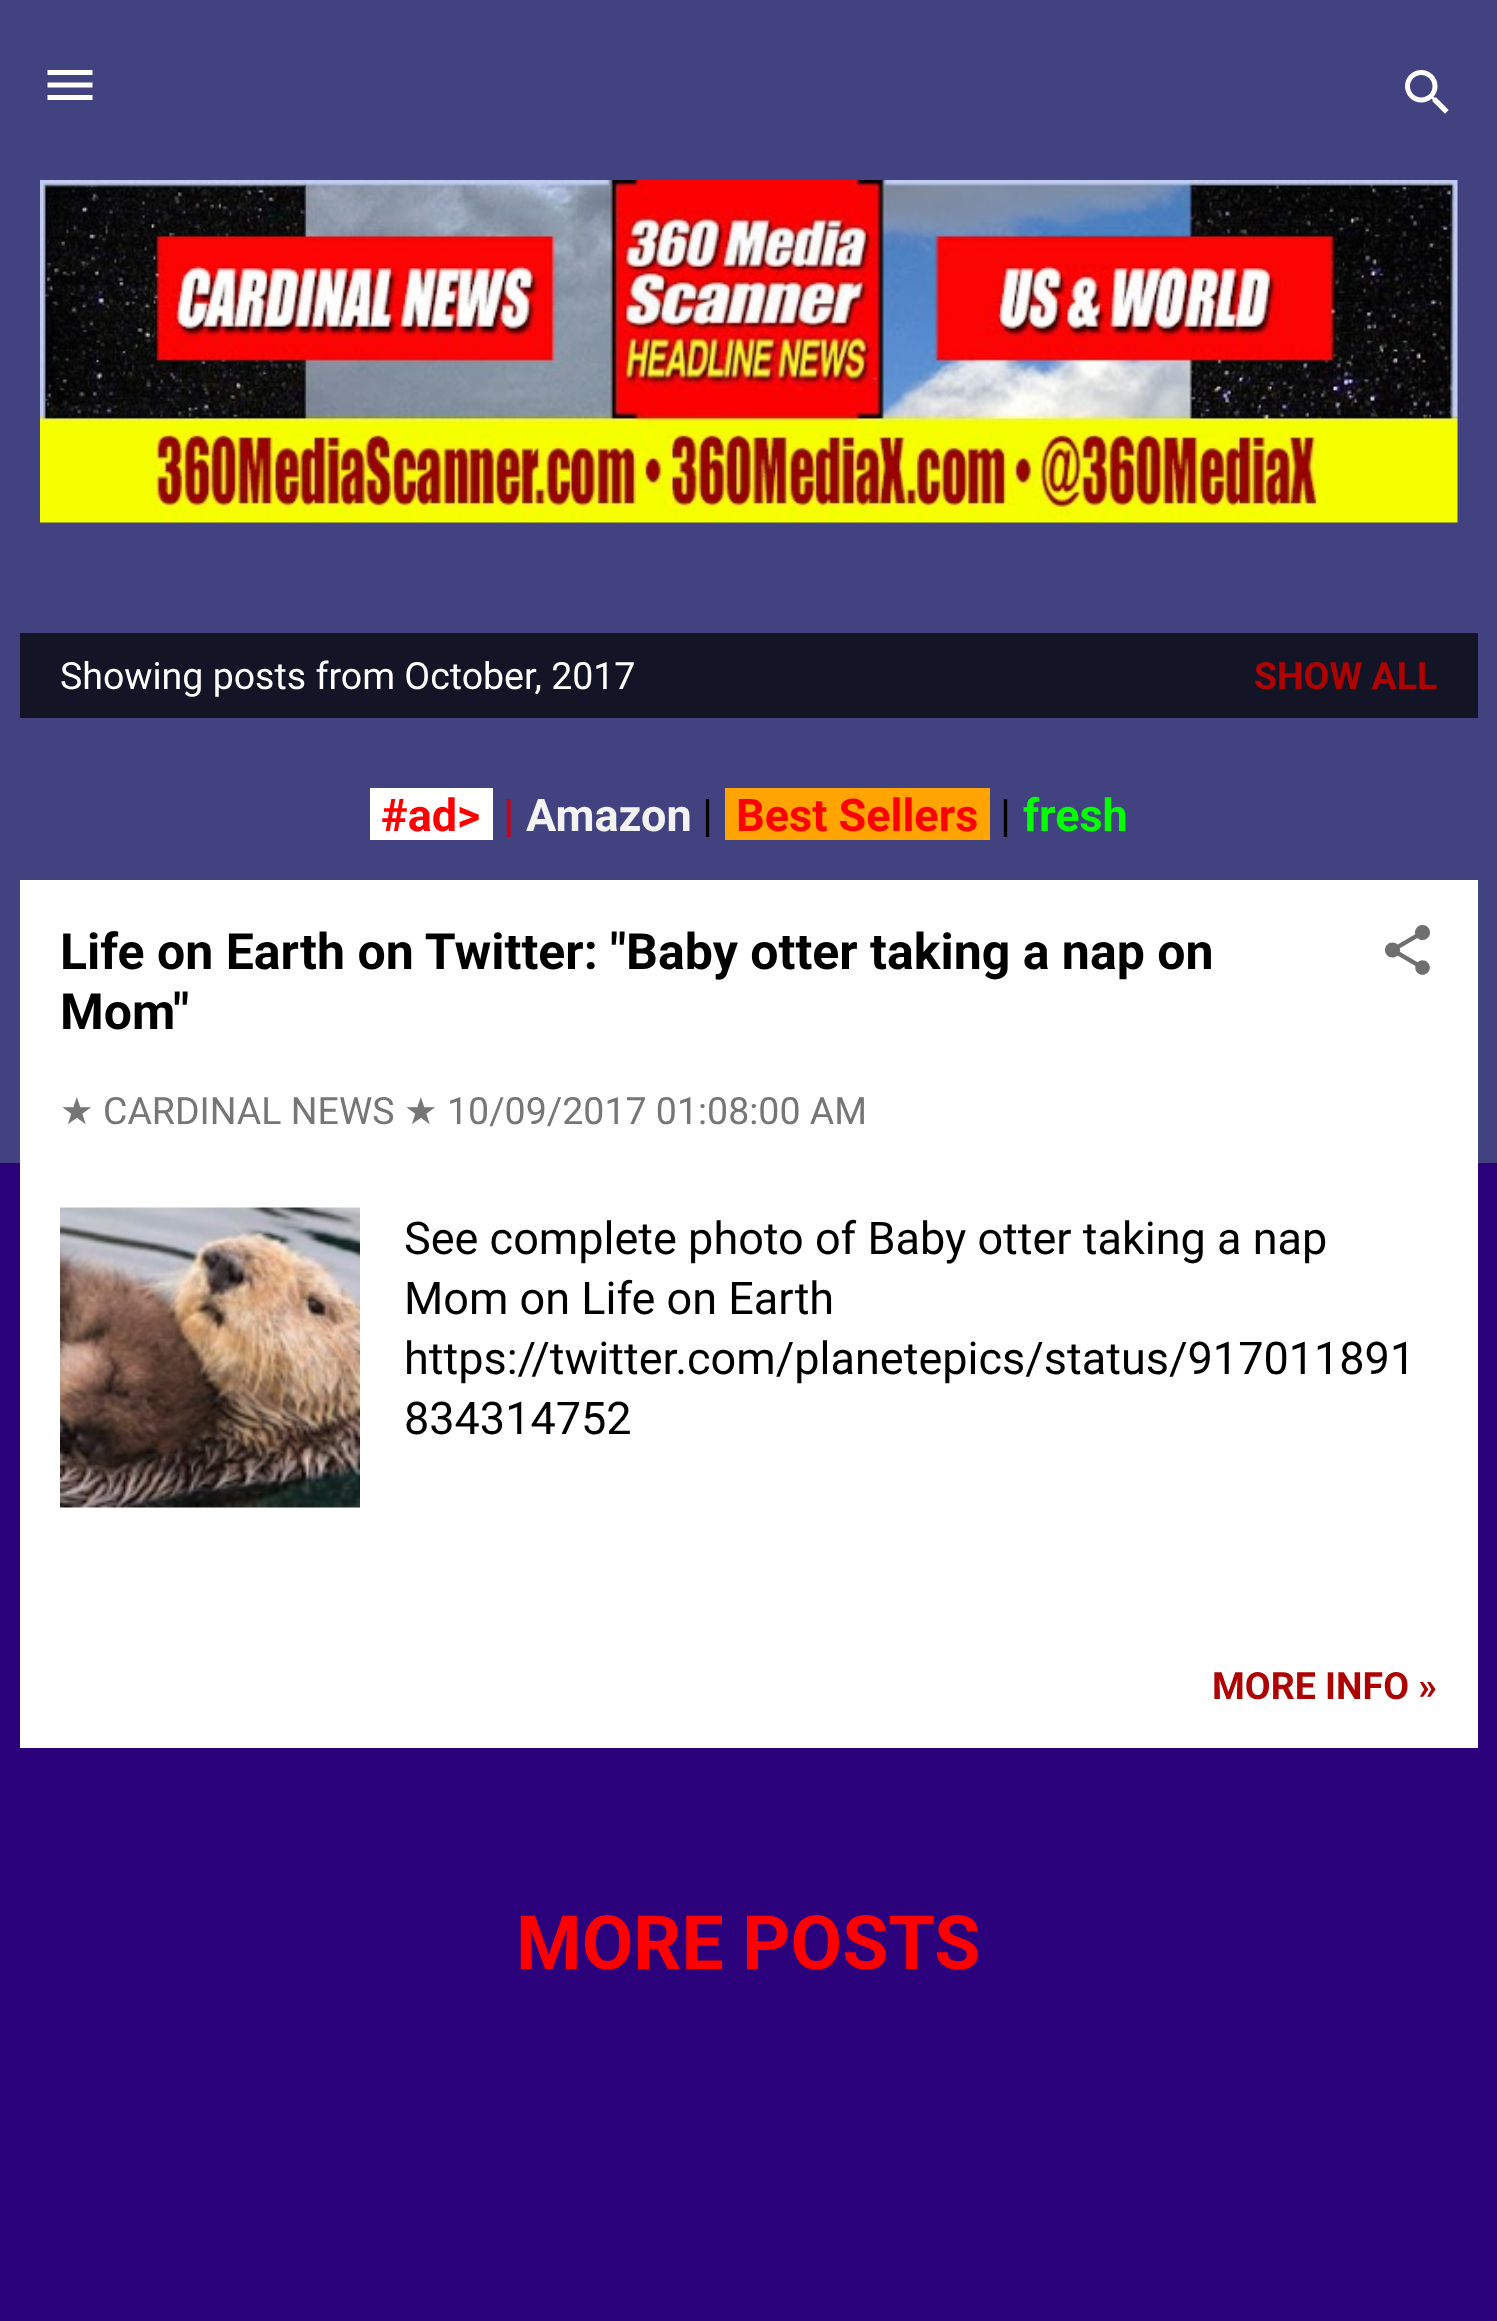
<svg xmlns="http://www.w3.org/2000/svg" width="1497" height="2321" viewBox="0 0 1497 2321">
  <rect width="100%" height="100%" fill="rgb(44,1,124)"/>
  <rect x="0" y="0" width="1497" height="1163" fill="rgb(66,66,129)"/>
  <image x="47" y="70" width="46" height="30" href="pic1.png"/>
  <image x="1405" y="70" width="44" height="44" href="pic2.png"/>
  <image x="40" y="180" width="1418" height="343" href="pic3.png"/>
  <rect x="20" y="633" width="1458" height="85" fill="rgb(20,20,39)"/>
  <text x="60" y="689" font-family="Roboto" font-size="37.5" fill="rgb(255,255,255)">Showing posts from October, 2017</text>
  <text x="1254" y="689" font-family="Roboto" font-size="37.5" font-weight="bold" fill="rgb(174,3,3)">SHOW ALL</text>
  <rect x="370" y="788" width="123" height="52" fill="rgb(255,255,255)"/>
  <text x="381" y="831" font-family="Roboto" font-size="45" font-weight="bold" fill="rgb(255,0,0)">#ad&gt;</text>
  <text x="503" y="831" font-family="Roboto" font-size="45" font-weight="bold" fill="rgb(206,1,16)">|</text>
  <text x="526" y="831" font-family="Roboto" font-size="45" font-weight="bold" fill="rgb(243,243,243)">Amazon</text>
  <text x="702" y="831" font-family="Roboto" font-size="45" fill="rgb(0,0,0)">|</text>
  <rect x="725" y="788" width="265" height="52" fill="rgb(255,164,0)"/>
  <text x="736" y="831" font-family="Roboto" font-size="45" font-weight="bold" fill="rgb(255,0,0)">Best Sellers</text>
  <text x="1000" y="831" font-family="Roboto" font-size="45" fill="rgb(0,0,0)">|</text>
  <text x="1023" y="831" font-family="Roboto" font-size="45" font-weight="bold" fill="rgb(4,255,0)">fresh</text>
  <rect x="20" y="880" width="1458" height="868" fill="rgb(255,255,255)"/>
  <g font-family="Roboto" font-size="50" font-weight="bold" fill="rgb(0,0,0)">
    <text>
      <tspan x="60" y="969">Life on Earth on Twitter: "Baby otter taking a nap on</tspan>
      <tspan x="60" y="1029">Mom"</tspan>
    </text>
  </g>
  <image x="1385" y="925" width="45" height="50" href="pic4.png"/>
  <text x="60" y="1124" font-family="DejaVu Sans" font-size="37.5" fill="rgb(118,118,118)">★</text>
  <text x="103" y="1124" font-family="Roboto" font-size="37.5" fill="rgb(118,118,118)">CARDINAL NEWS</text>
  <text x="404" y="1124" font-family="DejaVu Sans" font-size="37.5" fill="rgb(118,118,118)">★</text>
  <text x="447" y="1124" font-family="Roboto" font-size="37.5" fill="rgb(118,118,118)">10/09/2017 01:08:00 AM</text>
  <image x="60" y="1207" width="300" height="301" href="pic5.png"/>
  <g font-family="Roboto" font-size="45" fill="rgb(0,0,0)">
    <text>
      <tspan x="404" y="1254">See complete photo of Baby otter taking a nap</tspan>
      <tspan x="404" y="1314">Mom on Life on Earth</tspan>
      <tspan x="404" y="1374">https://twitter.com/planetepics/status/917011891</tspan>
      <tspan x="404" y="1434">834314752</tspan>
    </text>
  </g>
  <text x="1212" y="1699" font-family="Roboto" font-size="37.5" font-weight="bold" fill="rgb(174,3,3)">MORE INFO »</text>
  <text x="516" y="1969" font-family="Roboto" font-size="75" font-weight="bold" fill="rgb(255,0,0)">MORE POSTS</text>
</svg>
